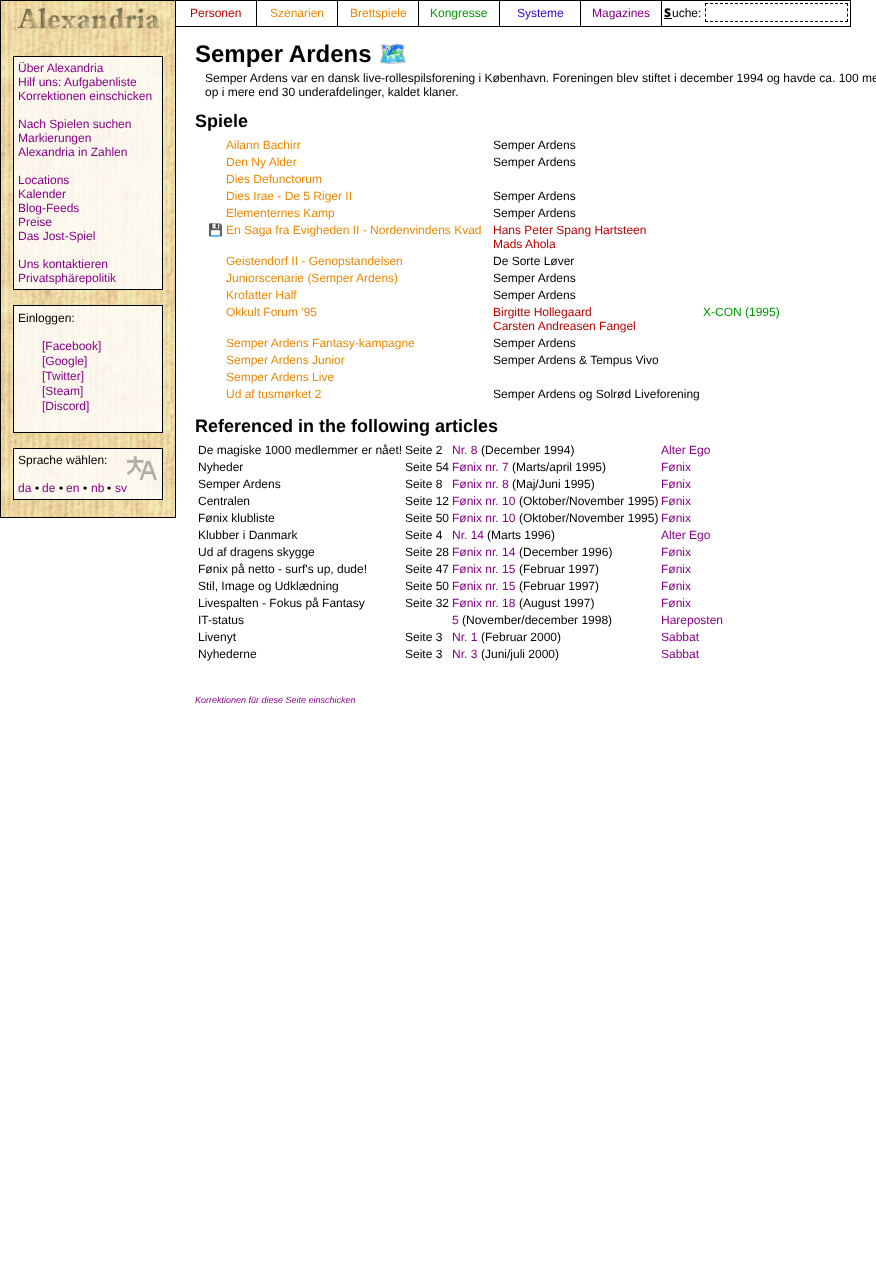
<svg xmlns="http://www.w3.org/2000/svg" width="876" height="1261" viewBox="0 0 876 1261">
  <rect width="100%" height="100%" fill="rgb(255,255,255)"/>
  <image x="1" y="1" width="174" height="516" href="pic1.png"/>
  <rect x="0.5" y="0.5" width="175" height="517" fill="none" stroke="rgb(0,0,0)"/>
  <rect x="175.5" y="0.5" width="675" height="26" fill="none" stroke="rgb(0,0,0)"/>
  <rect x="256" y="1" width="1" height="25" fill="rgb(0,0,0)"/>
  <text x="190" y="17" font-family="Liberation Sans" font-size="12" fill="rgb(187,0,0)">Personen</text>
  <rect x="337" y="1" width="1" height="25" fill="rgb(0,0,0)"/>
  <text x="270" y="17" font-family="Liberation Sans" font-size="12" fill="rgb(238,136,0)">Szenarien</text>
  <rect x="418" y="1" width="1" height="25" fill="rgb(0,0,0)"/>
  <text x="350" y="17" font-family="Liberation Sans" font-size="12" fill="rgb(238,136,0)">Brettspiele</text>
  <rect x="499" y="1" width="1" height="25" fill="rgb(0,0,0)"/>
  <text x="430" y="17" font-family="Liberation Sans" font-size="12" fill="rgb(0,153,0)">Kongresse</text>
  <rect x="580" y="1" width="1" height="25" fill="rgb(0,0,0)"/>
  <text x="517" y="17" font-family="Liberation Sans" font-size="12" fill="rgb(51,0,204)">Systeme</text>
  <rect x="661" y="1" width="1" height="25" fill="rgb(0,0,0)"/>
  <text x="592" y="17" font-family="Liberation Sans" font-size="12" fill="rgb(136,0,136)">Magazines</text>
  <text x="664" y="17" font-family="Noto Sans" font-size="12" font-weight="900" fill="rgb(0,0,0)">S</text>
  <rect x="664" y="18" width="8" height="1" fill="rgb(0,0,0)"/>
  <text x="672" y="17" font-family="Liberation Sans" font-size="12" fill="rgb(0,0,0)">uche:</text>
  <path d="M705 3.5H848" fill="none" stroke="rgb(0,0,0)" stroke-dasharray="3 2"/>
  <path d="M847.5 3V22" fill="none" stroke="rgb(0,0,0)" stroke-dasharray="3 2.33"/>
  <path d="M705 21.5H848" fill="none" stroke="rgb(0,0,0)" stroke-dasharray="3 2"/>
  <path d="M705.5 3V22" fill="none" stroke="rgb(0,0,0)" stroke-dasharray="3 2.33"/>
  <image x="16" y="7" width="148" height="25" href="pic2.png"/>
  <rect x="13.5" y="56.5" width="149" height="233" fill="rgba(255,255,255,0.8)" stroke="rgb(0,0,0)"/>
  <g font-family="Liberation Sans" font-size="12" fill="rgb(136,0,136)">
    <text>
      <tspan x="18" y="72">Über Alexandria</tspan>
      <tspan x="18" y="86">Hilf uns: Aufgabenliste</tspan>
      <tspan x="18" y="100">Korrektionen einschicken</tspan>
    </text>
    <text>
      <tspan x="18" y="128">Nach Spielen suchen</tspan>
      <tspan x="18" y="142">Markierungen</tspan>
      <tspan x="18" y="156">Alexandria in Zahlen</tspan>
    </text>
    <text>
      <tspan x="18" y="184">Locations</tspan>
      <tspan x="18" y="198">Kalender</tspan>
      <tspan x="18" y="212">Blog-Feeds</tspan>
      <tspan x="18" y="226">Preise</tspan>
      <tspan x="18" y="240">Das Jost-Spiel</tspan>
    </text>
    <text>
      <tspan x="18" y="268">Uns kontaktieren</tspan>
      <tspan x="18" y="282">Privatsphärepolitik</tspan>
    </text>
  </g>
  <rect x="13.5" y="305.5" width="149" height="127" fill="rgba(255,255,255,0.8)" stroke="rgb(0,0,0)"/>
  <text x="18" y="322" font-family="Liberation Sans" font-size="12" fill="rgb(0,0,0)">Einloggen:</text>
  <g font-family="Liberation Sans" font-size="12" fill="rgb(136,0,136)">
    <text>
      <tspan x="42" y="350">[Facebook]</tspan>
      <tspan x="42" y="365">[Google]</tspan>
      <tspan x="42" y="380">[Twitter]</tspan>
      <tspan x="42" y="395">[Steam]</tspan>
      <tspan x="42" y="410">[Discord]</tspan>
    </text>
  </g>
  <rect x="13.5" y="448.5" width="149" height="51" fill="rgba(255,255,255,0.8)" stroke="rgb(0,0,0)"/>
  <text x="18" y="464" font-family="Liberation Sans" font-size="12" fill="rgb(0,0,0)">Sprache wählen:</text>
  <image x="127" y="456" width="30" height="24" href="pic3.png"/>
  <text x="18" y="492" font-family="Liberation Sans" font-size="12" fill="rgb(136,0,136)">da</text>
  <text x="35" y="492" font-family="Liberation Sans" font-size="12" fill="rgb(0,0,0)">•</text>
  <text x="42" y="492" font-family="Liberation Sans" font-size="12" fill="rgb(136,0,136)">de</text>
  <text x="59" y="492" font-family="Liberation Sans" font-size="12" fill="rgb(0,0,0)">•</text>
  <text x="66" y="492" font-family="Liberation Sans" font-size="12" fill="rgb(136,0,136)">en</text>
  <text x="83" y="492" font-family="Liberation Sans" font-size="12" fill="rgb(0,0,0)">•</text>
  <text x="91" y="492" font-family="Liberation Sans" font-size="12" fill="rgb(136,0,136)">nb</text>
  <text x="107" y="492" font-family="Liberation Sans" font-size="12" fill="rgb(0,0,0)">•</text>
  <text x="115" y="492" font-family="Liberation Sans" font-size="12" fill="rgb(136,0,136)">sv</text>
  <text x="195" y="62" font-family="Liberation Sans" font-size="24" font-weight="bold" fill="rgb(0,0,0)">Semper Ardens</text>
  <text x="378" y="62" font-family="Noto Color Emoji" font-size="24" font-weight="bold" fill="rgb(136,0,136)">🗺️</text>
  <g font-family="Liberation Sans" font-size="12" fill="rgb(0,0,0)">
    <text>
      <tspan x="205" y="82">Semper Ardens var en dansk live-rollespilsforening i København. Foreningen blev stiftet i december 1994 og havde ca. 100 me</tspan>
      <tspan x="205" y="96">op i mere end 30 underafdelinger, kaldet klaner.</tspan>
    </text>
  </g>
  <text x="195" y="127" font-family="Liberation Sans" font-size="18" font-weight="bold" fill="rgb(0,0,0)">Spiele</text>
  <text x="226" y="149" font-family="Liberation Sans" font-size="12" fill="rgb(238,136,0)">Ailann Bachirr</text>
  <text x="493" y="149" font-family="Liberation Sans" font-size="12" fill="rgb(0,0,0)">Semper Ardens</text>
  <text x="226" y="166" font-family="Liberation Sans" font-size="12" fill="rgb(238,136,0)">Den Ny Alder</text>
  <text x="493" y="166" font-family="Liberation Sans" font-size="12" fill="rgb(0,0,0)">Semper Ardens</text>
  <g font-family="Liberation Sans" font-size="12" fill="rgb(238,136,0)">
    <text>
      <tspan x="226" y="183">Dies Defunctorum</tspan>
      <tspan x="226" y="200">Dies Irae - De 5 Riger II</tspan>
    </text>
  </g>
  <text x="493" y="200" font-family="Liberation Sans" font-size="12" fill="rgb(0,0,0)">Semper Ardens</text>
  <text x="226" y="217" font-family="Liberation Sans" font-size="12" fill="rgb(238,136,0)">Elementernes Kamp</text>
  <text x="493" y="217" font-family="Liberation Sans" font-size="12" fill="rgb(0,0,0)">Semper Ardens</text>
  <text x="208" y="234" font-family="Noto Color Emoji" font-size="12" fill="rgb(136,0,136)">💾</text>
  <text x="226" y="234" font-family="Liberation Sans" font-size="12" fill="rgb(238,136,0)">En Saga fra Evigheden II - Nordenvindens Kvad</text>
  <g font-family="Liberation Sans" font-size="12" fill="rgb(187,0,0)">
    <text>
      <tspan x="493" y="234">Hans Peter Spang Hartsteen</tspan>
      <tspan x="493" y="248">Mads Ahola</tspan>
    </text>
  </g>
  <text x="226" y="265" font-family="Liberation Sans" font-size="12" fill="rgb(238,136,0)">Geistendorf II - Genopstandelsen</text>
  <text x="493" y="265" font-family="Liberation Sans" font-size="12" fill="rgb(0,0,0)">De Sorte Løver</text>
  <text x="226" y="282" font-family="Liberation Sans" font-size="12" fill="rgb(238,136,0)">Juniorscenarie (Semper Ardens)</text>
  <text x="493" y="282" font-family="Liberation Sans" font-size="12" fill="rgb(0,0,0)">Semper Ardens</text>
  <text x="226" y="299" font-family="Liberation Sans" font-size="12" fill="rgb(238,136,0)">Krofatter Half</text>
  <text x="493" y="299" font-family="Liberation Sans" font-size="12" fill="rgb(0,0,0)">Semper Ardens</text>
  <text x="226" y="316" font-family="Liberation Sans" font-size="12" fill="rgb(238,136,0)">Okkult Forum '95</text>
  <g font-family="Liberation Sans" font-size="12" fill="rgb(187,0,0)">
    <text>
      <tspan x="493" y="316">Birgitte Hollegaard</tspan>
      <tspan x="493" y="330">Carsten Andreasen Fangel</tspan>
    </text>
  </g>
  <text x="703" y="316" font-family="Liberation Sans" font-size="12" fill="rgb(0,153,0)">X-CON (1995)</text>
  <text x="226" y="347" font-family="Liberation Sans" font-size="12" fill="rgb(238,136,0)">Semper Ardens Fantasy-kampagne</text>
  <text x="493" y="347" font-family="Liberation Sans" font-size="12" fill="rgb(0,0,0)">Semper Ardens</text>
  <text x="226" y="364" font-family="Liberation Sans" font-size="12" fill="rgb(238,136,0)">Semper Ardens Junior</text>
  <text x="493" y="364" font-family="Liberation Sans" font-size="12" fill="rgb(0,0,0)">Semper Ardens &amp; Tempus Vivo</text>
  <g font-family="Liberation Sans" font-size="12" fill="rgb(238,136,0)">
    <text>
      <tspan x="226" y="381">Semper Ardens Live</tspan>
      <tspan x="226" y="398">Ud af tusmørket 2</tspan>
    </text>
  </g>
  <text x="493" y="398" font-family="Liberation Sans" font-size="12" fill="rgb(0,0,0)">Semper Ardens og Solrød Liveforening</text>
  <text x="195" y="432" font-family="Liberation Sans" font-size="18" font-weight="bold" fill="rgb(0,0,0)">Referenced in the following articles</text>
  <g font-family="Liberation Sans" font-size="12" fill="rgb(0,0,0)">
    <text x="198" y="454">De magiske 1000 medlemmer er nået!</text>
    <text x="405" y="454">Seite 2</text>
  </g>
  <text x="452" y="454" font-family="Liberation Sans" font-size="12" fill="rgb(136,0,136)">Nr. 8</text>
  <text x="481" y="454" font-family="Liberation Sans" font-size="12" fill="rgb(0,0,0)">(December 1994)</text>
  <text x="661" y="454" font-family="Liberation Sans" font-size="12" fill="rgb(136,0,136)">Alter Ego</text>
  <g font-family="Liberation Sans" font-size="12" fill="rgb(0,0,0)">
    <text x="198" y="471">Nyheder</text>
    <text x="405" y="471">Seite 54</text>
  </g>
  <text x="452" y="471" font-family="Liberation Sans" font-size="12" fill="rgb(136,0,136)">Fønix nr. 7</text>
  <text x="512" y="471" font-family="Liberation Sans" font-size="12" fill="rgb(0,0,0)">(Marts/april 1995)</text>
  <text x="661" y="471" font-family="Liberation Sans" font-size="12" fill="rgb(136,0,136)">Fønix</text>
  <g font-family="Liberation Sans" font-size="12" fill="rgb(0,0,0)">
    <text x="198" y="488">Semper Ardens</text>
    <text x="405" y="488">Seite 8</text>
  </g>
  <text x="452" y="488" font-family="Liberation Sans" font-size="12" fill="rgb(136,0,136)">Fønix nr. 8</text>
  <text x="512" y="488" font-family="Liberation Sans" font-size="12" fill="rgb(0,0,0)">(Maj/Juni 1995)</text>
  <text x="661" y="488" font-family="Liberation Sans" font-size="12" fill="rgb(136,0,136)">Fønix</text>
  <g font-family="Liberation Sans" font-size="12" fill="rgb(0,0,0)">
    <text x="198" y="505">Centralen</text>
    <text x="405" y="505">Seite 12</text>
  </g>
  <text x="452" y="505" font-family="Liberation Sans" font-size="12" fill="rgb(136,0,136)">Fønix nr. 10</text>
  <text x="519" y="505" font-family="Liberation Sans" font-size="12" fill="rgb(0,0,0)">(Oktober/November 1995)</text>
  <text x="661" y="505" font-family="Liberation Sans" font-size="12" fill="rgb(136,0,136)">Fønix</text>
  <g font-family="Liberation Sans" font-size="12" fill="rgb(0,0,0)">
    <text x="198" y="522">Fønix klubliste</text>
    <text x="405" y="522">Seite 50</text>
  </g>
  <text x="452" y="522" font-family="Liberation Sans" font-size="12" fill="rgb(136,0,136)">Fønix nr. 10</text>
  <text x="519" y="522" font-family="Liberation Sans" font-size="12" fill="rgb(0,0,0)">(Oktober/November 1995)</text>
  <text x="661" y="522" font-family="Liberation Sans" font-size="12" fill="rgb(136,0,136)">Fønix</text>
  <g font-family="Liberation Sans" font-size="12" fill="rgb(0,0,0)">
    <text x="198" y="539">Klubber i Danmark</text>
    <text x="405" y="539">Seite 4</text>
  </g>
  <text x="452" y="539" font-family="Liberation Sans" font-size="12" fill="rgb(136,0,136)">Nr. 14</text>
  <text x="487" y="539" font-family="Liberation Sans" font-size="12" fill="rgb(0,0,0)">(Marts 1996)</text>
  <text x="661" y="539" font-family="Liberation Sans" font-size="12" fill="rgb(136,0,136)">Alter Ego</text>
  <g font-family="Liberation Sans" font-size="12" fill="rgb(0,0,0)">
    <text x="198" y="556">Ud af dragens skygge</text>
    <text x="405" y="556">Seite 28</text>
  </g>
  <text x="452" y="556" font-family="Liberation Sans" font-size="12" fill="rgb(136,0,136)">Fønix nr. 14</text>
  <text x="519" y="556" font-family="Liberation Sans" font-size="12" fill="rgb(0,0,0)">(December 1996)</text>
  <text x="661" y="556" font-family="Liberation Sans" font-size="12" fill="rgb(136,0,136)">Fønix</text>
  <g font-family="Liberation Sans" font-size="12" fill="rgb(0,0,0)">
    <text x="198" y="573">Fønix på netto - surf's up, dude!</text>
    <text x="405" y="573">Seite 47</text>
  </g>
  <text x="452" y="573" font-family="Liberation Sans" font-size="12" fill="rgb(136,0,136)">Fønix nr. 15</text>
  <text x="519" y="573" font-family="Liberation Sans" font-size="12" fill="rgb(0,0,0)">(Februar 1997)</text>
  <text x="661" y="573" font-family="Liberation Sans" font-size="12" fill="rgb(136,0,136)">Fønix</text>
  <g font-family="Liberation Sans" font-size="12" fill="rgb(0,0,0)">
    <text x="198" y="590">Stil, Image og Udklædning</text>
    <text x="405" y="590">Seite 50</text>
  </g>
  <text x="452" y="590" font-family="Liberation Sans" font-size="12" fill="rgb(136,0,136)">Fønix nr. 15</text>
  <text x="519" y="590" font-family="Liberation Sans" font-size="12" fill="rgb(0,0,0)">(Februar 1997)</text>
  <text x="661" y="590" font-family="Liberation Sans" font-size="12" fill="rgb(136,0,136)">Fønix</text>
  <g font-family="Liberation Sans" font-size="12" fill="rgb(0,0,0)">
    <text x="198" y="607">Livespalten - Fokus på Fantasy</text>
    <text x="405" y="607">Seite 32</text>
  </g>
  <text x="452" y="607" font-family="Liberation Sans" font-size="12" fill="rgb(136,0,136)">Fønix nr. 18</text>
  <text x="519" y="607" font-family="Liberation Sans" font-size="12" fill="rgb(0,0,0)">(August 1997)</text>
  <text x="661" y="607" font-family="Liberation Sans" font-size="12" fill="rgb(136,0,136)">Fønix</text>
  <text x="198" y="624" font-family="Liberation Sans" font-size="12" fill="rgb(0,0,0)">IT-status</text>
  <text x="452" y="624" font-family="Liberation Sans" font-size="12" fill="rgb(136,0,136)">5</text>
  <text x="462" y="624" font-family="Liberation Sans" font-size="12" fill="rgb(0,0,0)">(November/december 1998)</text>
  <text x="661" y="624" font-family="Liberation Sans" font-size="12" fill="rgb(136,0,136)">Hareposten</text>
  <g font-family="Liberation Sans" font-size="12" fill="rgb(0,0,0)">
    <text x="198" y="641">Livenyt</text>
    <text x="405" y="641">Seite 3</text>
  </g>
  <text x="452" y="641" font-family="Liberation Sans" font-size="12" fill="rgb(136,0,136)">Nr. 1</text>
  <text x="481" y="641" font-family="Liberation Sans" font-size="12" fill="rgb(0,0,0)">(Februar 2000)</text>
  <text x="661" y="641" font-family="Liberation Sans" font-size="12" fill="rgb(136,0,136)">Sabbat</text>
  <g font-family="Liberation Sans" font-size="12" fill="rgb(0,0,0)">
    <text x="198" y="658">Nyhederne</text>
    <text x="405" y="658">Seite 3</text>
  </g>
  <text x="452" y="658" font-family="Liberation Sans" font-size="12" fill="rgb(136,0,136)">Nr. 3</text>
  <text x="481" y="658" font-family="Liberation Sans" font-size="12" fill="rgb(0,0,0)">(Juni/juli 2000)</text>
  <text x="661" y="658" font-family="Liberation Sans" font-size="12" fill="rgb(136,0,136)">Sabbat</text>
  <text x="195" y="703" font-family="Liberation Sans" font-size="9" font-style="italic" fill="rgb(136,0,136)">Korrektionen für diese Seite einschicken</text>
</svg>
